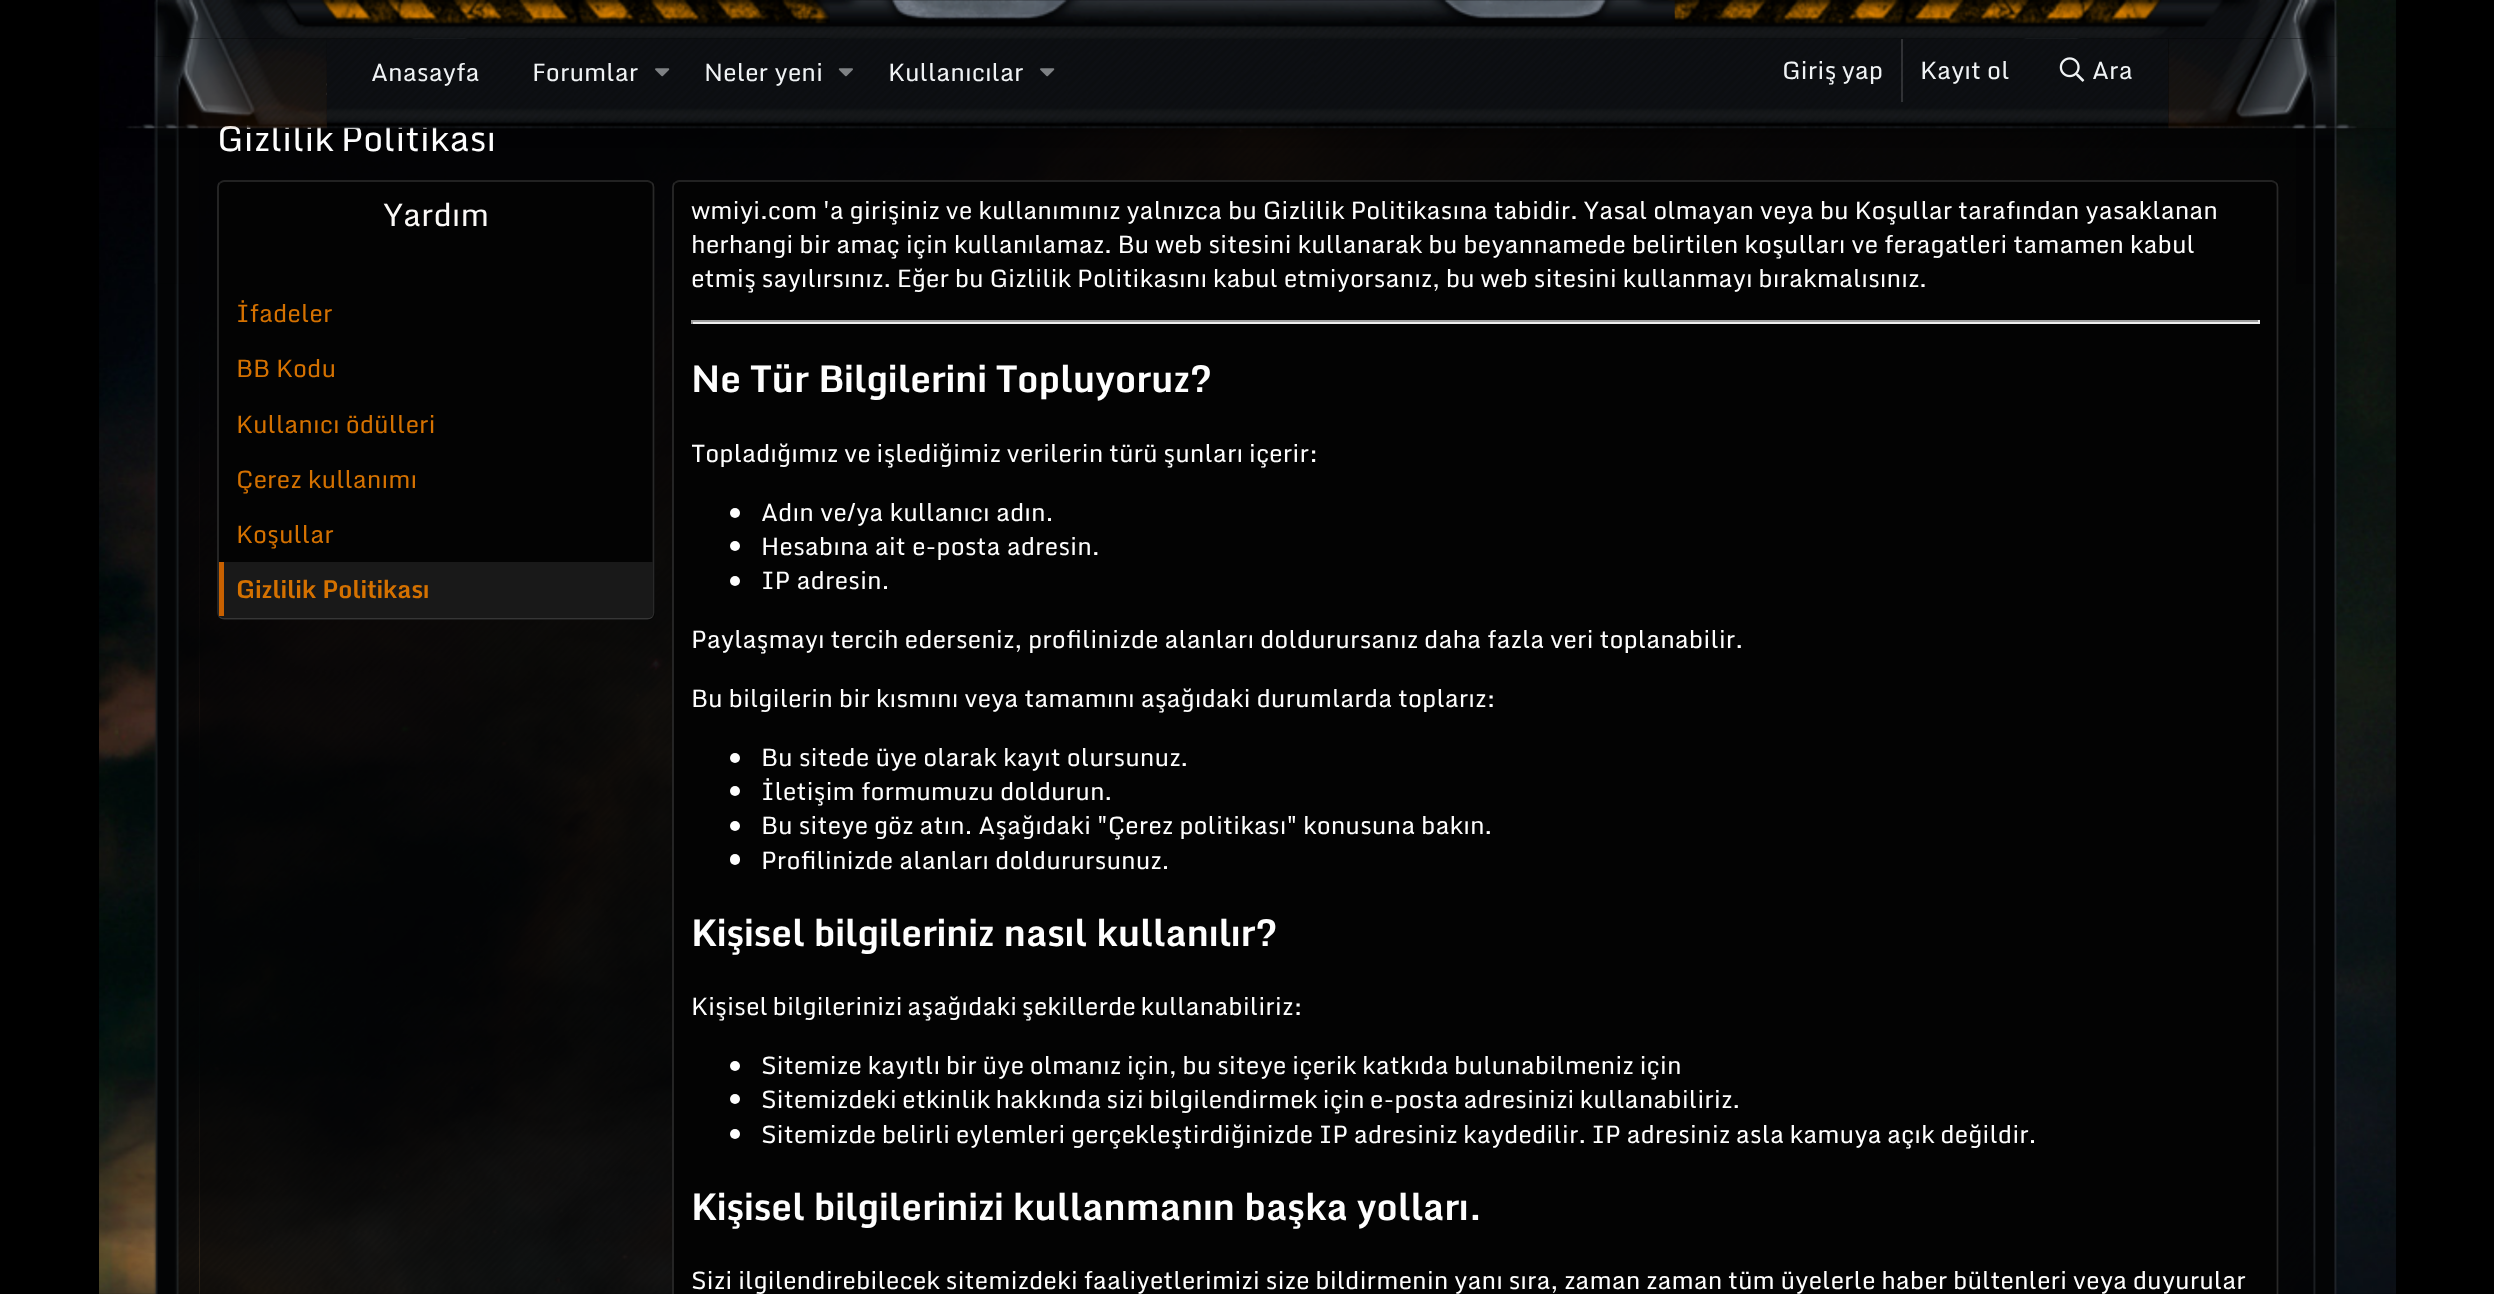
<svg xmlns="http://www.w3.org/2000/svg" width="2494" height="1294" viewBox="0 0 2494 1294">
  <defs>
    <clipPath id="clip1"><path d="M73 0H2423V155H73ZM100 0H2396V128H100Z" clip-rule="evenodd"/></clipPath>
  </defs>
  <rect width="100%" height="100%" fill="rgb(0,0,0)"/>
  <image x="99" y="0" width="2297" height="1294" href="pic1.png"/>
  <image x="512" y="0" width="1471" height="39" href="pic3.png"/>
  <image x="154" y="0" width="359" height="57" href="pic2.png"/>
  <image x="1983" y="0" width="355" height="57" href="pic4.png"/>
  <image x="153" y="56" width="47" height="1238" href="pic16.png"/>
  <image x="2296" y="56" width="41" height="1238" href="pic17.png"/>
  <image x="154" y="56" width="43" height="228" href="pic18.png"/>
  <image x="199" y="56" width="2097" height="1238" href="pic19.png"/>
  <image x="326" y="83" width="1" height="12" href="pic20.png"/>
  <image x="2296" y="56" width="42" height="228" href="pic21.png"/>
  <g clip-path="url(#clip1)">
    <rect x="95" y="-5" width="2306" height="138" fill="rgba(0,0,0,0.3)" filter="blur(7px)"/>
  </g>
  <image x="160" y="0" width="685" height="39" href="pic5.png"/>
  <image x="845" y="0" width="805" height="39" href="pic7.png"/>
  <image x="1650" y="0" width="680" height="39" href="pic8.png"/>
  <image x="830" y="0" width="845" height="39" href="pic6.png"/>
  <text x="217" y="151" word-spacing="-2" font-family="Monda" font-size="35" fill="rgb(254,254,254)">Gizlilik Politikası</text>
  <image x="126" y="39" width="202" height="90" href="pic9.png"/>
  <image x="2167" y="39" width="190" height="90" href="pic15.png"/>
  <image x="327" y="39" width="1841" height="90" href="pic10.png"/>
  <g font-family="Monda" font-size="24.5" fill="rgb(240,243,245)">
    <text x="371" y="81">Anasayfa</text>
    <text x="532" y="81">Forumlar</text>
  </g>
  <image x="655" y="68" width="15" height="9" href="pic11.png"/>
  <text x="704" y="81" font-family="Monda" font-size="24.5" fill="rgb(240,243,245)">Neler yeni</text>
  <image x="838" y="68" width="15" height="9" href="pic12.png"/>
  <text x="888" y="81" font-family="Monda" font-size="24.5" fill="rgb(240,243,245)">Kullanıcılar</text>
  <image x="1040" y="68" width="15" height="9" href="pic13.png"/>
  <text x="1782" y="79" word-spacing="-1" font-family="Monda" font-size="24.5" fill="rgb(240,243,245)">Giriş yap</text>
  <rect x="1901" y="39" width="2" height="63" fill="rgba(254,254,254,0.15)"/>
  <text x="1920" y="79" font-family="Monda" font-size="24.5" fill="rgb(240,243,245)">Kayıt ol</text>
  <image x="2059" y="57" width="26" height="25" href="pic14.png"/>
  <text x="2092" y="79" font-family="Monda" font-size="24.5" fill="rgb(240,243,245)">Ara</text>
  <rect x="217" y="180" width="438" height="440" rx="7" fill="rgb(3,3,3)"/>
  <path d="M219.5 183C221 182 222.5 181 224 181H647.5C649 181 650.5 182 652 183" fill="none" stroke="rgb(34,34,34)" stroke-width="1.8"/>
  <path d="M652 183C653 184 653.5 185.5 653.5 187V612.5C653.5 614 653 615.5 652 617" fill="none" stroke="rgb(41,41,41)" stroke-width="1.8"/>
  <path d="M652 617C650.5 618 649 618.5 647.5 618.5H224C222.5 618.5 221 618 219.5 617" fill="none" stroke="rgb(54,54,54)" stroke-width="1.8"/>
  <path d="M219.5 617C218.5 615.5 218 614 218 612.5V187C218 185.5 218.5 184 219.5 183" fill="none" stroke="rgb(41,41,41)" stroke-width="1.8"/>
  <text x="383" y="226" font-family="Monda" font-size="31.5" fill="rgb(251,249,247)">Yardım</text>
  <g font-family="Monda" font-size="24.5" fill="rgb(212,113,0)">
    <text x="236" y="322">İfadeler</text>
    <text x="236" y="377">BB Kodu</text>
    <text x="236" y="433">Kullanıcı ödülleri</text>
    <text x="236" y="488">Çerez kullanımı</text>
    <text x="236" y="543">Koşullar</text>
  </g>
  <path d="M219 562H653V613C653 616 651 618 648 618H224C221 618 219 616 219 613Z" fill="rgb(25,25,25)"/>
  <rect x="219" y="562" width="5" height="54" fill="rgb(199,96,0)"/>
  <text x="236" y="598" font-family="Monda" font-size="24.5" font-weight="bold" fill="rgb(212,113,0)">Gizlilik Politikası</text>
  <rect x="672" y="180" width="1607" height="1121" rx="7" fill="rgb(3,3,3)"/>
  <path d="M674.5 183C676 182 677.5 181 679 181H2271.5C2273 181 2274.5 182 2276 183" fill="none" stroke="rgb(34,34,34)" stroke-width="1.8"/>
  <path d="M2276 183C2277 184 2277.5 185.5 2277.5 187V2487C2277.5 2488.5 2277 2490 2276 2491" fill="none" stroke="rgb(41,41,41)" stroke-width="1.8"/>
  <path d="M674.5 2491C673.5 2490 673 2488.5 673 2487V187C673 185.5 673.5 184 674.5 183" fill="none" stroke="rgb(41,41,41)" stroke-width="1.8"/>
  <g font-family="Monda" font-size="24.5" fill="rgb(254,254,254)">
    <text>
      <tspan x="691" y="219" word-spacing="-0.3">wmiyi.com 'a girişiniz ve kullanımınız yalnızca bu Gizlilik Politikasına tabidir. Yasal olmayan veya bu Koşullar tarafından yasaklanan</tspan>
      <tspan x="691" y="253" word-spacing="-0.25">herhangi bir amaç için kullanılamaz. Bu web sitesini kullanarak bu beyannamede belirtilen koşulları ve feragatleri tamamen kabul</tspan>
      <tspan x="691" y="287" word-spacing="-0.4">etmiş sayılırsınız. Eğer bu Gizlilik Politikasını kabul etmiyorsanız, bu web sitesini kullanmayı bırakmalısınız.</tspan>
    </text>
  </g>
  <rect x="691" y="320" width="1568" height="2" fill="rgb(159,159,159)"/>
  <rect x="2258" y="320" width="2" height="4" fill="rgb(238,238,238)"/>
  <rect x="691" y="322" width="1568" height="2" fill="rgb(238,238,238)"/>
  <rect x="691" y="320" width="2" height="4" fill="rgb(159,159,159)"/>
  <text x="691" y="392" font-family="Monda" font-size="36.75" font-weight="bold" fill="rgb(254,254,254)">Ne Tür Bilgilerini Topluyoruz?</text>
  <text x="691" y="462" word-spacing="-0.5" font-family="Monda" font-size="24.5" fill="rgb(254,254,254)">Topladığımız ve işlediğimiz verilerin türü şunları içerir:</text>
  <circle cx="735" cy="513" r="5" fill="rgb(254,254,254)"/>
  <text x="761" y="521" font-family="Monda" font-size="24.5" fill="rgb(254,254,254)">Adın ve/ya kullanıcı adın.</text>
  <circle cx="735" cy="546" r="5" fill="rgb(254,254,254)"/>
  <text x="761" y="555" font-family="Monda" font-size="24.5" fill="rgb(254,254,254)">Hesabına ait e-posta adresin.</text>
  <circle cx="735" cy="581" r="5" fill="rgb(254,254,254)"/>
  <g font-family="Monda" font-size="24.5" fill="rgb(254,254,254)">
    <text x="761" y="589">IP adresin.</text>
    <text x="691" y="648" word-spacing="-0.25">Paylaşmayı tercih ederseniz, profilinizde alanları doldurursanız daha fazla veri toplanabilir.</text>
    <text x="691" y="707" word-spacing="-0.25">Bu bilgilerin bir kısmını veya tamamını aşağıdaki durumlarda toplarız:</text>
  </g>
  <circle cx="735" cy="758" r="5" fill="rgb(254,254,254)"/>
  <text x="761" y="766" font-family="Monda" font-size="24.5" fill="rgb(254,254,254)">Bu sitede üye olarak kayıt olursunuz.</text>
  <circle cx="735" cy="791" r="5" fill="rgb(254,254,254)"/>
  <text x="761" y="800" font-family="Monda" font-size="24.5" fill="rgb(254,254,254)">İletişim formumuzu doldurun.</text>
  <circle cx="735" cy="826" r="5" fill="rgb(254,254,254)"/>
  <text x="761" y="834" word-spacing="-0.25" font-family="Monda" font-size="24.5" fill="rgb(254,254,254)">Bu siteye göz atın. Aşağıdaki "Çerez politikası" konusuna bakın.</text>
  <rect x="730" y="854" width="10" height="11" rx="5" fill="rgb(254,254,254)"/>
  <text x="761" y="869" font-family="Monda" font-size="24.5" fill="rgb(254,254,254)">Profilinizde alanları doldurursunuz.</text>
  <text x="691" y="946" font-family="Monda" font-size="36.75" font-weight="bold" fill="rgb(254,254,254)">Kişisel bilgileriniz nasıl kullanılır?</text>
  <text x="691" y="1015" word-spacing="-1.5" font-family="Monda" font-size="24.5" fill="rgb(254,254,254)">Kişisel bilgilerinizi aşağıdaki şekillerde kullanabiliriz:</text>
  <circle cx="735" cy="1066" r="5" fill="rgb(254,254,254)"/>
  <text x="761" y="1074" word-spacing="-0.5" font-family="Monda" font-size="24.5" fill="rgb(254,254,254)">Sitemize kayıtlı bir üye olmanız için, bu siteye içerik katkıda bulunabilmeniz için</text>
  <circle cx="735" cy="1099" r="5" fill="rgb(254,254,254)"/>
  <text x="761" y="1108" word-spacing="-1" font-family="Monda" font-size="24.5" fill="rgb(254,254,254)">Sitemizdeki etkinlik hakkında sizi bilgilendirmek için e-posta adresinizi kullanabiliriz.</text>
  <circle cx="735" cy="1134" r="5" fill="rgb(254,254,254)"/>
  <text x="761" y="1143" word-spacing="-0.6" font-family="Monda" font-size="24.5" fill="rgb(254,254,254)">Sitemizde belirli eylemleri gerçekleştirdiğinizde IP adresiniz kaydedilir. IP adresiniz asla kamuya açık değildir.</text>
  <text x="691" y="1220" font-family="Monda" font-size="36.75" font-weight="bold" fill="rgb(254,254,254)">Kişisel bilgilerinizi kullanmanın başka yolları.</text>
  <text x="691" y="1289" word-spacing="-0.5" font-family="Monda" font-size="24.5" fill="rgb(254,254,254)">Sizi ilgilendirebilecek sitemizdeki faaliyetlerimizi size bildirmenin yanı sıra, zaman zaman tüm üyelerle haber bültenleri veya duyurular</text>
</svg>
